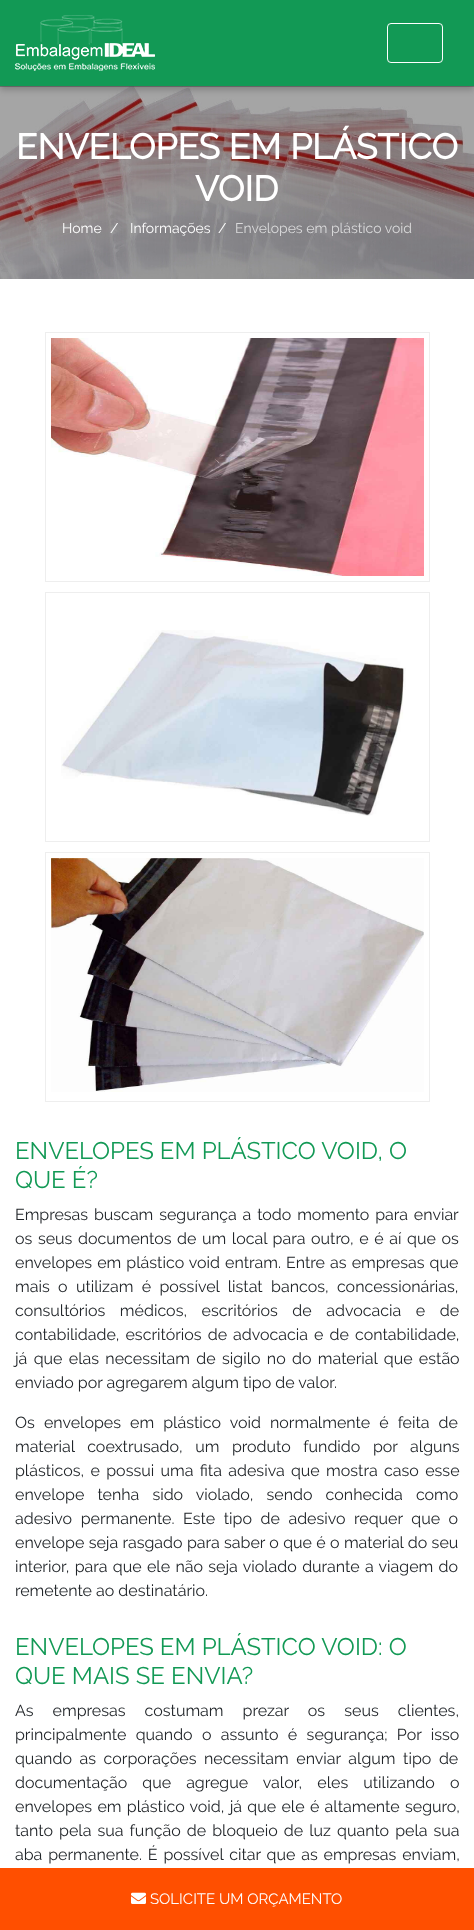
<svg xmlns="http://www.w3.org/2000/svg" width="474" height="1930" viewBox="0 0 474 1930">
  <rect width="100%" height="100%" fill="rgb(255,255,255)"/>
  <image x="0" y="86" width="474" height="193" href="pic2.png"/>
  <rect x="0" y="4" width="474" height="86" fill="rgba(0,0,0,0.2)" filter="blur(3px)"/>
  <rect x="0" y="0" width="474" height="86" fill="rgb(18,153,85)"/>
  <image x="15" y="15" width="140" height="56" href="pic1.png"/>
  <rect x="387.5" y="23.5" width="55" height="39" rx="3.5" fill="none" stroke="rgb(255,255,255)"/>
  <g font-family="Raleway" font-size="35.25" font-weight="bold" fill="rgb(255,255,255)">
    <text x="16" y="159">ENVELOPES EM PLÁSTICO</text>
    <text x="195" y="201">VOID</text>
  </g>
  <g font-family="Raleway" font-size="14" fill="rgb(255,255,255)">
    <text x="62" y="233">Home</text>
    <text x="110" y="233">/</text>
    <text x="130" y="233">Informações</text>
    <text x="218" y="233">/</text>
  </g>
  <text x="235" y="233" font-family="Raleway" font-size="14" fill="rgb(218,218,219)">Envelopes em plástico void</text>
  <rect x="45.5" y="332.5" width="384" height="249" fill="none" stroke="rgb(238,238,238)"/>
  <image x="51" y="338" width="373" height="238" href="pic3.png"/>
  <rect x="45.5" y="592.5" width="384" height="249" fill="none" stroke="rgb(238,238,238)"/>
  <image x="61" y="630" width="345" height="186" href="pic4.png"/>
  <rect x="45.5" y="852.5" width="384" height="249" fill="none" stroke="rgb(238,238,238)"/>
  <image x="51" y="858" width="373" height="234" href="pic5.png"/>
  <g font-family="Raleway" font-size="24" fill="rgb(18,153,85)">
    <text>
      <tspan x="15" y="1159">ENVELOPES EM PLÁSTICO VOID, O</tspan>
      <tspan x="15" y="1188">QUE É?</tspan>
    </text>
  </g>
  <g font-family="Raleway" font-size="16" fill="rgb(33,37,41)">
    <text>
      <tspan x="15" y="1220" word-spacing="1.75">Empresas buscam segurança a todo momento para enviar</tspan>
      <tspan x="15" y="1244" word-spacing="1.5">os seus documentos de um local para outro, e é aí que os</tspan>
      <tspan x="15" y="1268" word-spacing="1">envelopes em plástico void entram. Entre as empresas que</tspan>
      <tspan x="15" y="1292" word-spacing="4.25">mais o utilizam é possível listat bancos, concessionárias,</tspan>
      <tspan x="15" y="1316" word-spacing="10.5">consultórios médicos, escritórios de advocacia e de</tspan>
      <tspan x="15" y="1340" word-spacing="2">contabilidade, escritórios de advocacia e de contabilidade,</tspan>
      <tspan x="15" y="1364" word-spacing="2.25">já que elas necessitam de sigilo no do material que estão</tspan>
      <tspan x="15" y="1388">enviado por agregarem algum tipo de valor.</tspan>
    </text>
    <text>
      <tspan x="15" y="1428" word-spacing="5">Os envelopes em plástico void normalmente é feita de</tspan>
      <tspan x="15" y="1452" word-spacing="8.5">material coextrusado, um produto fundido por alguns</tspan>
      <tspan x="15" y="1476" word-spacing="2.25">plásticos, e possui uma fita adesiva que mostra caso esse</tspan>
      <tspan x="15" y="1500" word-spacing="9">envelope tenha sido violado, sendo conhecida como</tspan>
      <tspan x="15" y="1524" word-spacing="4.5">adesivo permanente. Este tipo de adesivo requer que o</tspan>
      <tspan x="15" y="1548" word-spacing="0.25">envelope seja rasgado para saber o que é o material do seu</tspan>
      <tspan x="15" y="1572" word-spacing="1.25">interior, para que ele não seja violado durante a viagem do</tspan>
      <tspan x="15" y="1596">remetente ao destinatário.</tspan>
    </text>
  </g>
  <g font-family="Raleway" font-size="24" fill="rgb(18,153,85)">
    <text>
      <tspan x="15" y="1655">ENVELOPES EM PLÁSTICO VOID: O</tspan>
      <tspan x="15" y="1684">QUE MAIS SE ENVIA?</tspan>
    </text>
  </g>
  <g font-family="Raleway" font-size="16" fill="rgb(33,37,41)">
    <text>
      <tspan x="15" y="1716" word-spacing="15">As empresas costumam prezar os seus clientes,</tspan>
      <tspan x="15" y="1740" word-spacing="5.25">principalmente quando o assunto é segurança; Por isso</tspan>
      <tspan x="15" y="1764" word-spacing="3.5">quando as corporações necessitam enviar algum tipo de</tspan>
      <tspan x="15" y="1788" word-spacing="11">documentação que agregue valor, eles utilizando o</tspan>
      <tspan x="15" y="1812" word-spacing="1.25">envelopes em plástico void, já que ele é altamente seguro,</tspan>
      <tspan x="15" y="1836" word-spacing="2">tanto pela sua função de bloqueio de luz quanto pela sua</tspan>
      <tspan x="15" y="1860" word-spacing="1.75">aba permanente. É possível citar que as empresas enviam,</tspan>
    </text>
  </g>
  <rect x="0" y="1868" width="474" height="62" fill="rgb(255,79,0)"/>
  <image x="131" y="1892" width="15" height="12" href="pic6.png"/>
  <text x="150" y="1904" font-family="Raleway" font-size="15" fill="rgb(255,255,255)">SOLICITE UM ORÇAMENTO</text>
</svg>
